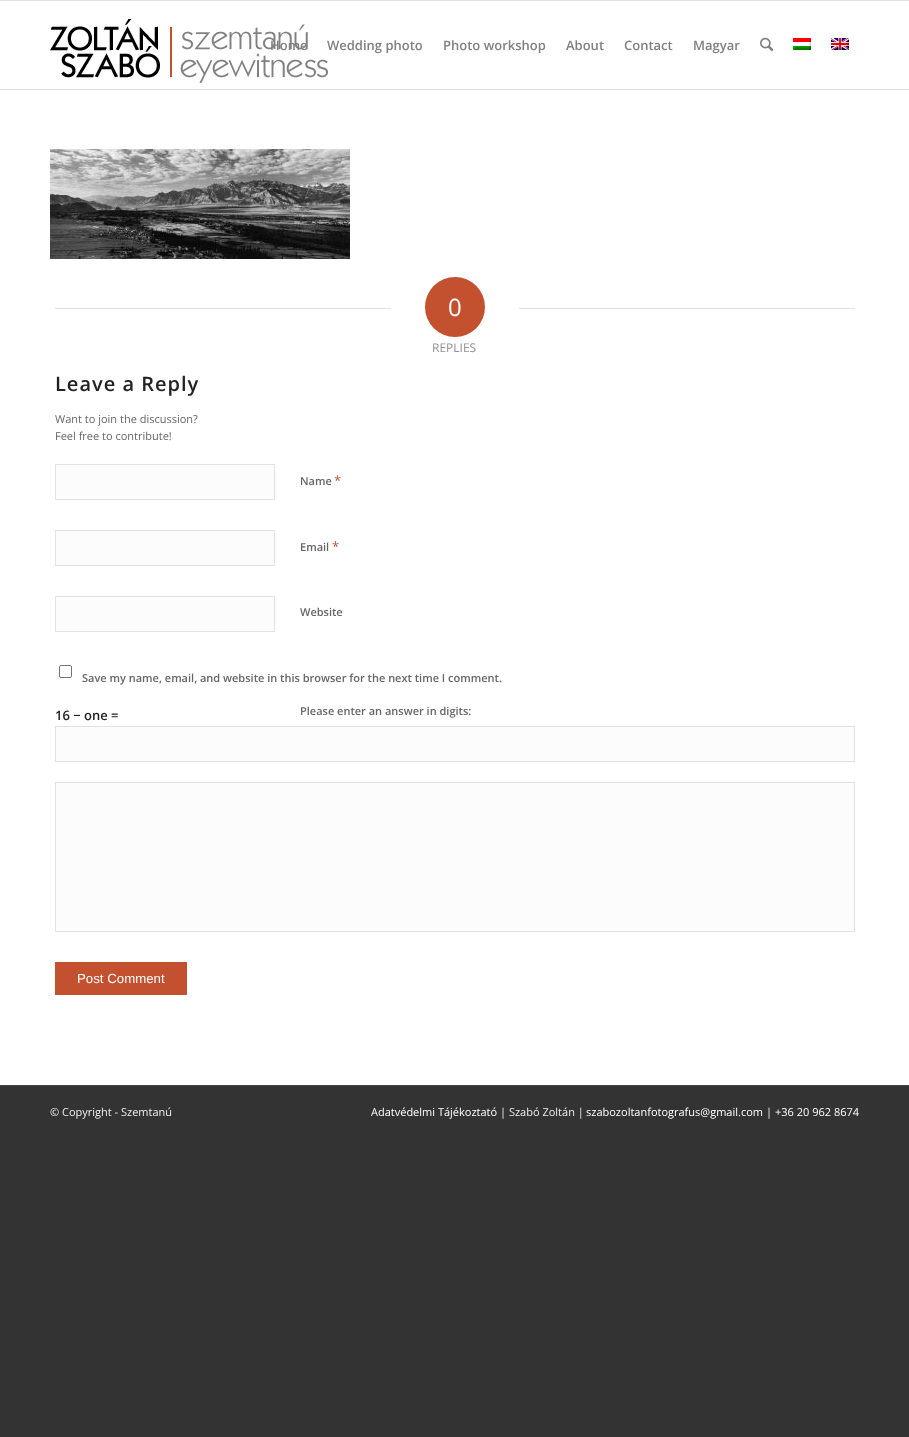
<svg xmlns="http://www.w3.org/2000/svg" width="909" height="1437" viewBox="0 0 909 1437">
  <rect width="100%" height="100%" fill="rgb(51,51,51)"/>
  <rect x="0" y="1" width="909" height="1084" fill="rgb(255,255,255)"/>
  <rect x="0" y="0" width="909" height="1" fill="rgb(225,225,225)"/>
  <rect x="0" y="89" width="909" height="1" fill="rgb(225,225,225)"/>
  <image x="50" y="19" width="278" height="64" href="pic1.png"/>
  <g font-family="Open Sans" font-size="13" font-weight="600" fill="rgb(128,128,128)">
    <text x="270" y="50">Home</text>
    <text x="327" y="50">Wedding photo</text>
    <text x="443" y="50">Photo workshop</text>
    <text x="566" y="50">About</text>
    <text x="624" y="50">Contact</text>
    <text x="693" y="50">Magyar</text>
  </g>
  <image x="760" y="37" width="13" height="15" href="pic2.png"/>
  <image x="793" y="38" width="18" height="12" href="pic3.png"/>
  <image x="831" y="38" width="18" height="12" href="pic4.png"/>
  <image x="50" y="149" width="300" height="110" href="pic5.png"/>
  <rect x="55" y="308" width="336" height="1" fill="rgb(225,225,225)"/>
  <circle cx="455" cy="307" r="30" fill="rgb(195,81,47)"/>
  <text x="448" y="316" font-family="Open Sans" font-size="24" fill="rgb(255,255,255)">0</text>
  <rect x="519" y="308" width="336" height="1" fill="rgb(225,225,225)"/>
  <text x="432" y="352" font-family="Open Sans" font-size="12" fill="rgb(145,145,145)">REPLIES</text>
  <text x="55" y="391" font-family="Open Sans" font-size="20" font-weight="600" letter-spacing="1" fill="rgb(34,34,34)">Leave a Reply</text>
  <g font-family="Open Sans" font-size="11" fill="rgb(102,102,102)">
    <text>
      <tspan x="55" y="423">Want to join the discussion?</tspan>
      <tspan x="55" y="440">Feel free to contribute!</tspan>
    </text>
  </g>
  <rect x="55.5" y="464.5" width="219" height="35" fill="rgb(252,252,252)" stroke="rgb(225,225,225)"/>
  <text x="300" y="485" font-family="Open Sans" font-size="11" font-weight="600" fill="rgb(102,102,102)">Name</text>
  <text x="334" y="485" font-family="Open Sans" font-size="13" fill="rgb(195,81,47)">*</text>
  <rect x="55.5" y="530.5" width="219" height="35" fill="rgb(252,252,252)" stroke="rgb(225,225,225)"/>
  <text x="300" y="551" font-family="Open Sans" font-size="11" font-weight="600" fill="rgb(102,102,102)">Email</text>
  <text x="332" y="551" font-family="Open Sans" font-size="13" fill="rgb(195,81,47)">*</text>
  <rect x="55.5" y="596.5" width="219" height="35" fill="rgb(252,252,252)" stroke="rgb(225,225,225)"/>
  <text x="300" y="616" font-family="Open Sans" font-size="11" font-weight="600" fill="rgb(102,102,102)">Website</text>
  <rect x="59.5" y="665.5" width="12" height="12" rx="1.5" fill="none" stroke="rgb(118,118,118)"/>
  <text x="82" y="682" font-family="Open Sans" font-size="11" font-weight="600" fill="rgb(102,102,102)">Save my name, email, and website in this browser for the next time I comment.</text>
  <text x="55" y="720" font-family="Open Sans" font-size="13" font-weight="600" fill="rgb(34,34,34)">16 − one =</text>
  <rect x="55.5" y="726.5" width="799" height="35" fill="rgb(252,252,252)" stroke="rgb(225,225,225)"/>
  <text x="300" y="715" font-family="Open Sans" font-size="11" font-weight="600" fill="rgb(102,102,102)">Please enter an answer in digits:</text>
  <rect x="55.5" y="782.5" width="799" height="149" fill="rgb(252,252,252)" stroke="rgb(225,225,225)"/>
  <rect x="55" y="962" width="132" height="33" fill="rgb(195,81,47)"/>
  <text x="77" y="983" font-family="Liberation Sans" font-size="13.25" fill="rgb(255,255,255)">Post Comment</text>
  <rect x="0" y="1085" width="909" height="1" fill="rgb(68,68,68)"/>
  <text x="50" y="1116" font-family="Open Sans" font-size="11" fill="rgb(238,238,238)">© Copyright - Szemtanú</text>
  <text x="371" y="1116" font-family="Open Sans" font-size="11" fill="rgb(255,255,255)">Adatvédelmi Tájékoztató</text>
  <text x="500" y="1116" font-family="Open Sans" font-size="11" fill="rgb(238,238,238)">| Szabó Zoltán |</text>
  <text x="586" y="1116" font-family="Open Sans" font-size="11" fill="rgb(255,255,255)">szabozoltanfotografus@gmail.com</text>
  <text x="766" y="1116" font-family="Open Sans" font-size="11" fill="rgb(238,238,238)">|</text>
  <text x="775" y="1116" font-family="Open Sans" font-size="11" fill="rgb(255,255,255)">+36 20 962 8674</text>
</svg>
